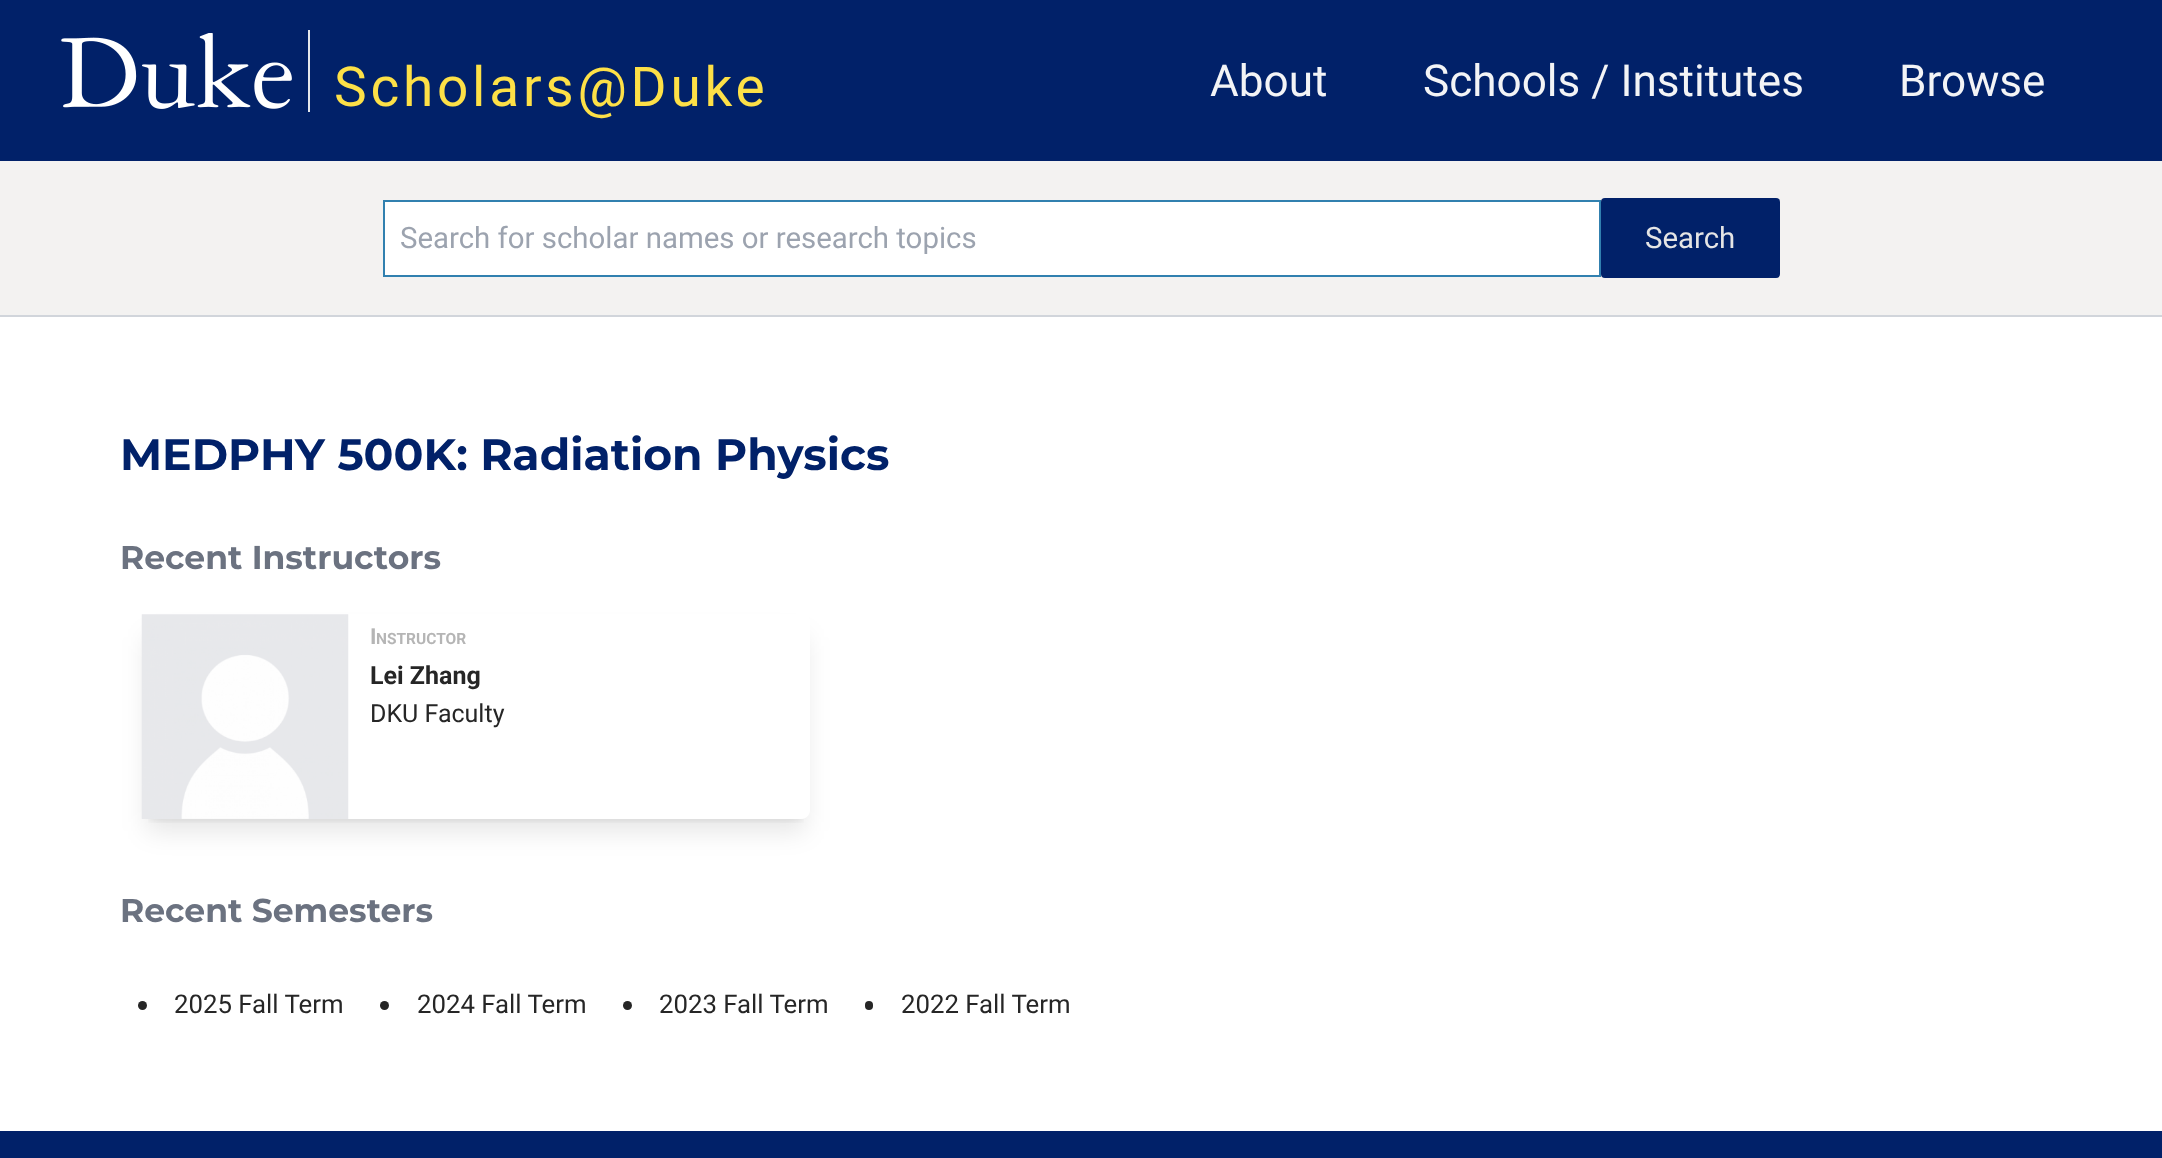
<svg xmlns="http://www.w3.org/2000/svg" width="2162" height="1158" viewBox="0 0 2162 1158">
  <defs>
    <clipPath id="clip1"><rect x="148" y="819" width="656" height="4"/></clipPath>
    <clipPath id="clip2"><path d="M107 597H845V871H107ZM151 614H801C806 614 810 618 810 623V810C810 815 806 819 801 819H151C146 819 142 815 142 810V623C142 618 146 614 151 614Z" clip-rule="evenodd"/></clipPath>
  </defs>
  <rect width="100%" height="100%" fill="rgb(255,255,255)"/>
  <rect x="0" y="0" width="2162" height="161" fill="rgb(1,33,105)"/>
  <image x="61" y="33" width="231" height="76" href="pic1.png"/>
  <rect x="308" y="30" width="2" height="82" fill="rgb(229,231,235)"/>
  <text x="334" y="106" font-family="Roboto" font-size="55" letter-spacing="3.75" fill="rgb(253,224,71)">Scholars@Duke</text>
  <g font-family="Roboto" font-size="44.1" fill="rgb(243,244,246)">
    <text x="1210" y="96">About</text>
    <text x="1423" y="96">Schools / Institutes</text>
    <text x="1899" y="96">Browse</text>
  </g>
  <rect x="0" y="315" width="2162" height="2" fill="rgb(209,213,219)"/>
  <rect x="0" y="161" width="2162" height="154" fill="rgb(243,242,241)"/>
  <rect x="384" y="201" width="1216" height="75" fill="rgb(255,255,255)" stroke="rgb(49,128,175)" stroke-width="2"/>
  <text x="400" y="248" font-family="Roboto" font-size="29.4" fill="rgb(156,163,175)">Search for scholar names or research topics</text>
  <rect x="1601" y="198" width="179" height="80" rx="4" fill="rgb(1,33,105)"/>
  <text x="1645" y="248" font-family="Roboto" font-size="29.4" fill="rgb(229,229,229)">Search</text>
  <text x="120" y="470" font-family="Montserrat" font-size="44.1" font-weight="bold" fill="rgb(1,33,105)">MEDPHY 500K: Radiation Physics</text>
  <text x="120" y="569" font-family="Montserrat" font-size="33" font-weight="bold" fill="rgb(107,114,128)">Recent Instructors</text>
  <g clip-path="url(#clip1)">
    <rect x="149" y="628" width="654" height="191" rx="2" fill="rgba(0,0,0,0.1)" filter="blur(5px)"/>
  </g>
  <g clip-path="url(#clip2)">
    <rect x="147" y="637" width="658" height="194" rx="4" fill="rgba(0,0,0,0.1)" filter="blur(13px)"/>
  </g>
  <image x="141" y="614" width="208" height="205" href="pic2.png"/>
  <text x="370" y="644" font-family="Roboto" font-size="22" font-weight="bold" fill="rgb(181,181,181)">I</text>
  <text x="376" y="644" font-family="Roboto" font-size="15.5" font-weight="bold" fill="rgb(181,181,181)">NSTRUCTOR</text>
  <text x="370" y="684" font-family="Roboto" font-size="25" font-weight="bold" fill="rgb(38,38,38)">Lei Zhang</text>
  <text x="370" y="722" font-family="Roboto" font-size="25" fill="rgb(38,38,38)">DKU Faculty</text>
  <text x="120" y="922" font-family="Montserrat" font-size="33" font-weight="bold" fill="rgb(107,114,128)">Recent Semesters</text>
  <circle cx="142.5" cy="1005.5" r="4.5" fill="rgb(38,38,38)"/>
  <text x="174" y="1013" font-family="Roboto" font-size="25.75" fill="rgb(38,38,38)">2025 Fall Term</text>
  <circle cx="384.5" cy="1005.5" r="4.5" fill="rgb(38,38,38)"/>
  <text x="417" y="1013" font-family="Roboto" font-size="25.75" fill="rgb(38,38,38)">2024 Fall Term</text>
  <circle cx="627.5" cy="1005.5" r="4.5" fill="rgb(38,38,38)"/>
  <text x="659" y="1013" font-family="Roboto" font-size="25.75" fill="rgb(38,38,38)">2023 Fall Term</text>
  <rect x="865" y="1001" width="8" height="9" rx="4" fill="rgb(38,38,38)"/>
  <text x="901" y="1013" font-family="Roboto" font-size="25.75" fill="rgb(38,38,38)">2022 Fall Term</text>
  <rect x="0" y="1131" width="2162" height="27" fill="rgb(1,33,105)"/>
</svg>
